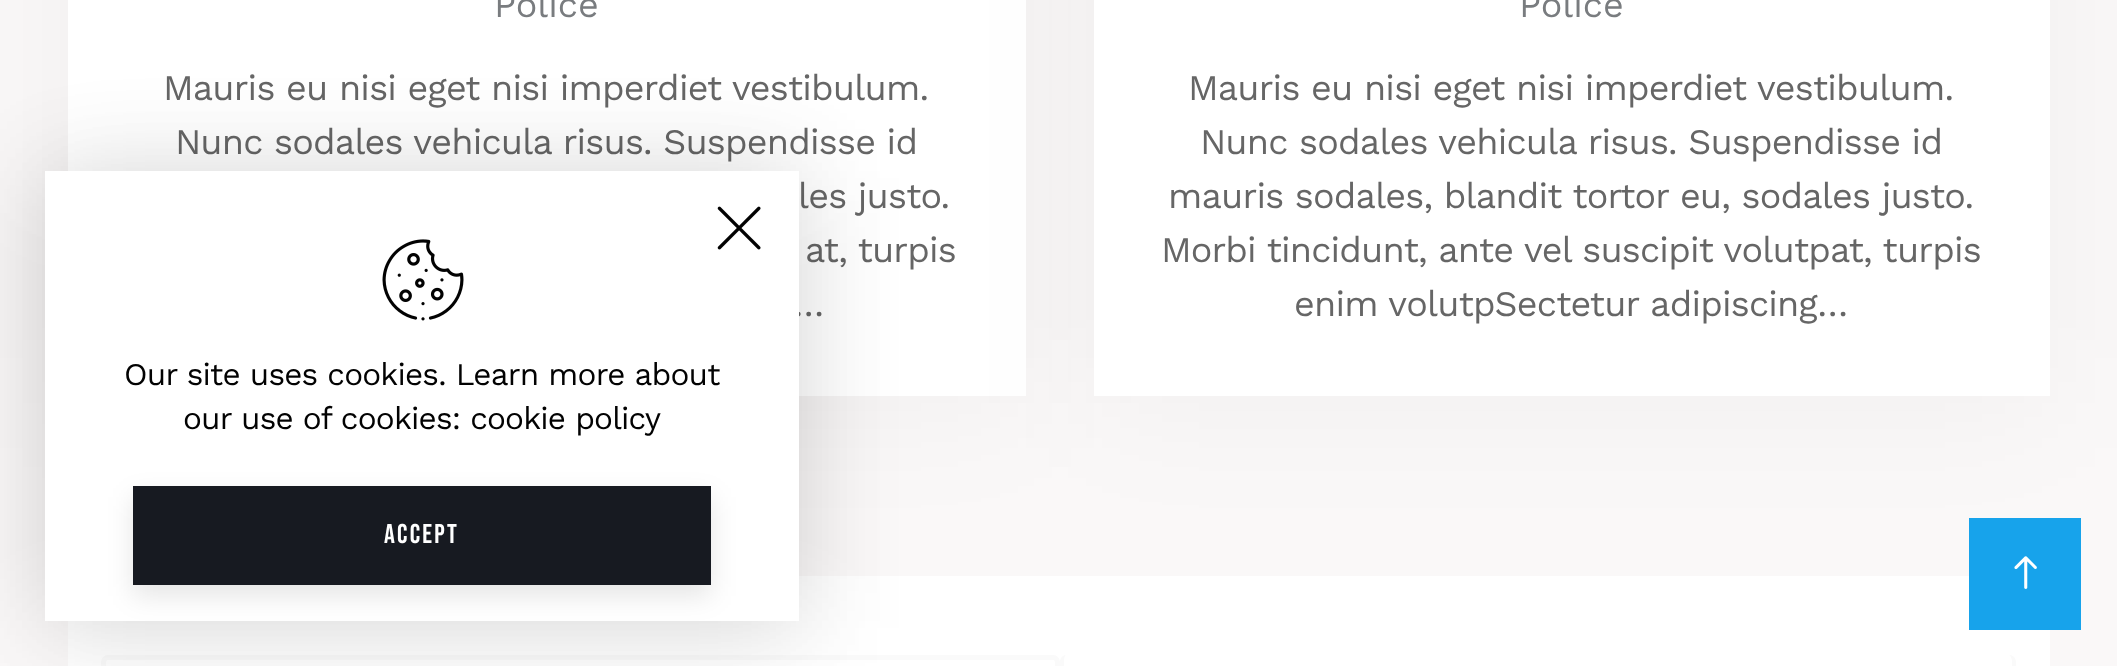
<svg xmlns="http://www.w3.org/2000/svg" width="2117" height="666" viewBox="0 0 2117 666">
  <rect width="100%" height="100%" fill="rgb(250,248,248)"/>
  <rect x="68" y="576" width="1982" height="90" fill="rgb(255,255,255)"/>
  <rect x="68" y="-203" width="958" height="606" fill="rgba(0,0,0,0.04)" filter="blur(67.5px)"/>
  <rect x="68" y="0" width="958" height="396" fill="rgb(255,255,255)"/>
  <text x="494" y="17" font-family="Work Sans" font-size="36" fill="rgb(121,124,127)">Police</text>
  <g font-family="Work Sans" font-size="36" letter-spacing="-0.8" fill="rgb(102,102,102)">
    <text x="163" y="100">Mauris eu nisi eget nisi imperdiet vestibulum.</text>
    <text x="175" y="154">Nunc sodales vehicula risus. Suspendisse id</text>
    <text x="798" y="208">les justo.</text>
    <text x="805" y="262">at, turpis</text>
    <text x="793" y="316">…</text>
  </g>
  <rect x="1094" y="-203" width="956" height="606" fill="rgba(0,0,0,0.04)" filter="blur(67.5px)"/>
  <rect x="1094" y="0" width="956" height="396" fill="rgb(255,255,255)"/>
  <text x="1519" y="17" font-family="Work Sans" font-size="36" fill="rgb(121,124,127)">Police</text>
  <g font-family="Work Sans" font-size="36" letter-spacing="-0.8" fill="rgb(102,102,102)">
    <text x="1188" y="100">Mauris eu nisi eget nisi imperdiet vestibulum.</text>
    <text x="1200" y="154">Nunc sodales vehicula risus. Suspendisse id</text>
    <text x="1168" y="208">mauris sodales, blandit tortor eu, sodales justo.</text>
    <text x="1161" y="262">Morbi tincidunt, ante vel suscipit volutpat, turpis</text>
    <text x="1294" y="316">enim volutpSectetur adipiscing…</text>
  </g>
  <rect x="103.5" y="657.5" width="954" height="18" rx="4.5" fill="none" stroke="rgb(250,250,250)" stroke-width="5"/>
  <path d="M1066 655H2009C2013 655 2016 658 2016 662V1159C2016 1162 2013 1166 2009 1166H1066C1063 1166 1060 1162 1060 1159V662C1060 658 1063 655 1066 655ZM1066 655H2009C2010 655 2012 658 2012 662V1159C2012 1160 2010 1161 2009 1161H1066C1065 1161 1064 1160 1064 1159V662C1064 658 1065 655 1066 655Z" fill="rgb(250,250,250)" fill-rule="evenodd"/>
  <rect x="45" y="178" width="754" height="450" fill="rgba(0,0,0,0.1)" filter="blur(52px)"/>
  <rect x="45" y="171" width="754" height="450" fill="rgba(0,0,0,0.07)" filter="blur(45px)"/>
  <rect x="45" y="171" width="754" height="450" fill="rgb(255,255,255)"/>
  <image x="717" y="206" width="44" height="44" href="pic1.png"/>
  <image x="382" y="239" width="82" height="82" href="pic2.png"/>
  <g font-family="Work Sans" font-size="31.5" letter-spacing="-0.8" fill="rgb(2,2,2)">
    <text x="124" y="385">Our site uses cookies. Learn more about</text>
    <text x="183" y="429">our use of cookies: cookie policy</text>
  </g>
  <rect x="133" y="497" width="578" height="99" fill="rgba(0,0,0,0.1)" filter="blur(13.5px)"/>
  <rect x="133" y="486" width="578" height="99" fill="rgb(23,26,33)"/>
  <text x="384" y="543" font-family="Bebas Neue" font-size="27" letter-spacing="2.25" fill="rgb(255,255,255)">ACCEPT</text>
  <rect x="1969" y="518" width="112" height="112" fill="rgb(23,163,235)"/>
  <image x="2014" y="556" width="23" height="33" href="pic3.png"/>
</svg>
